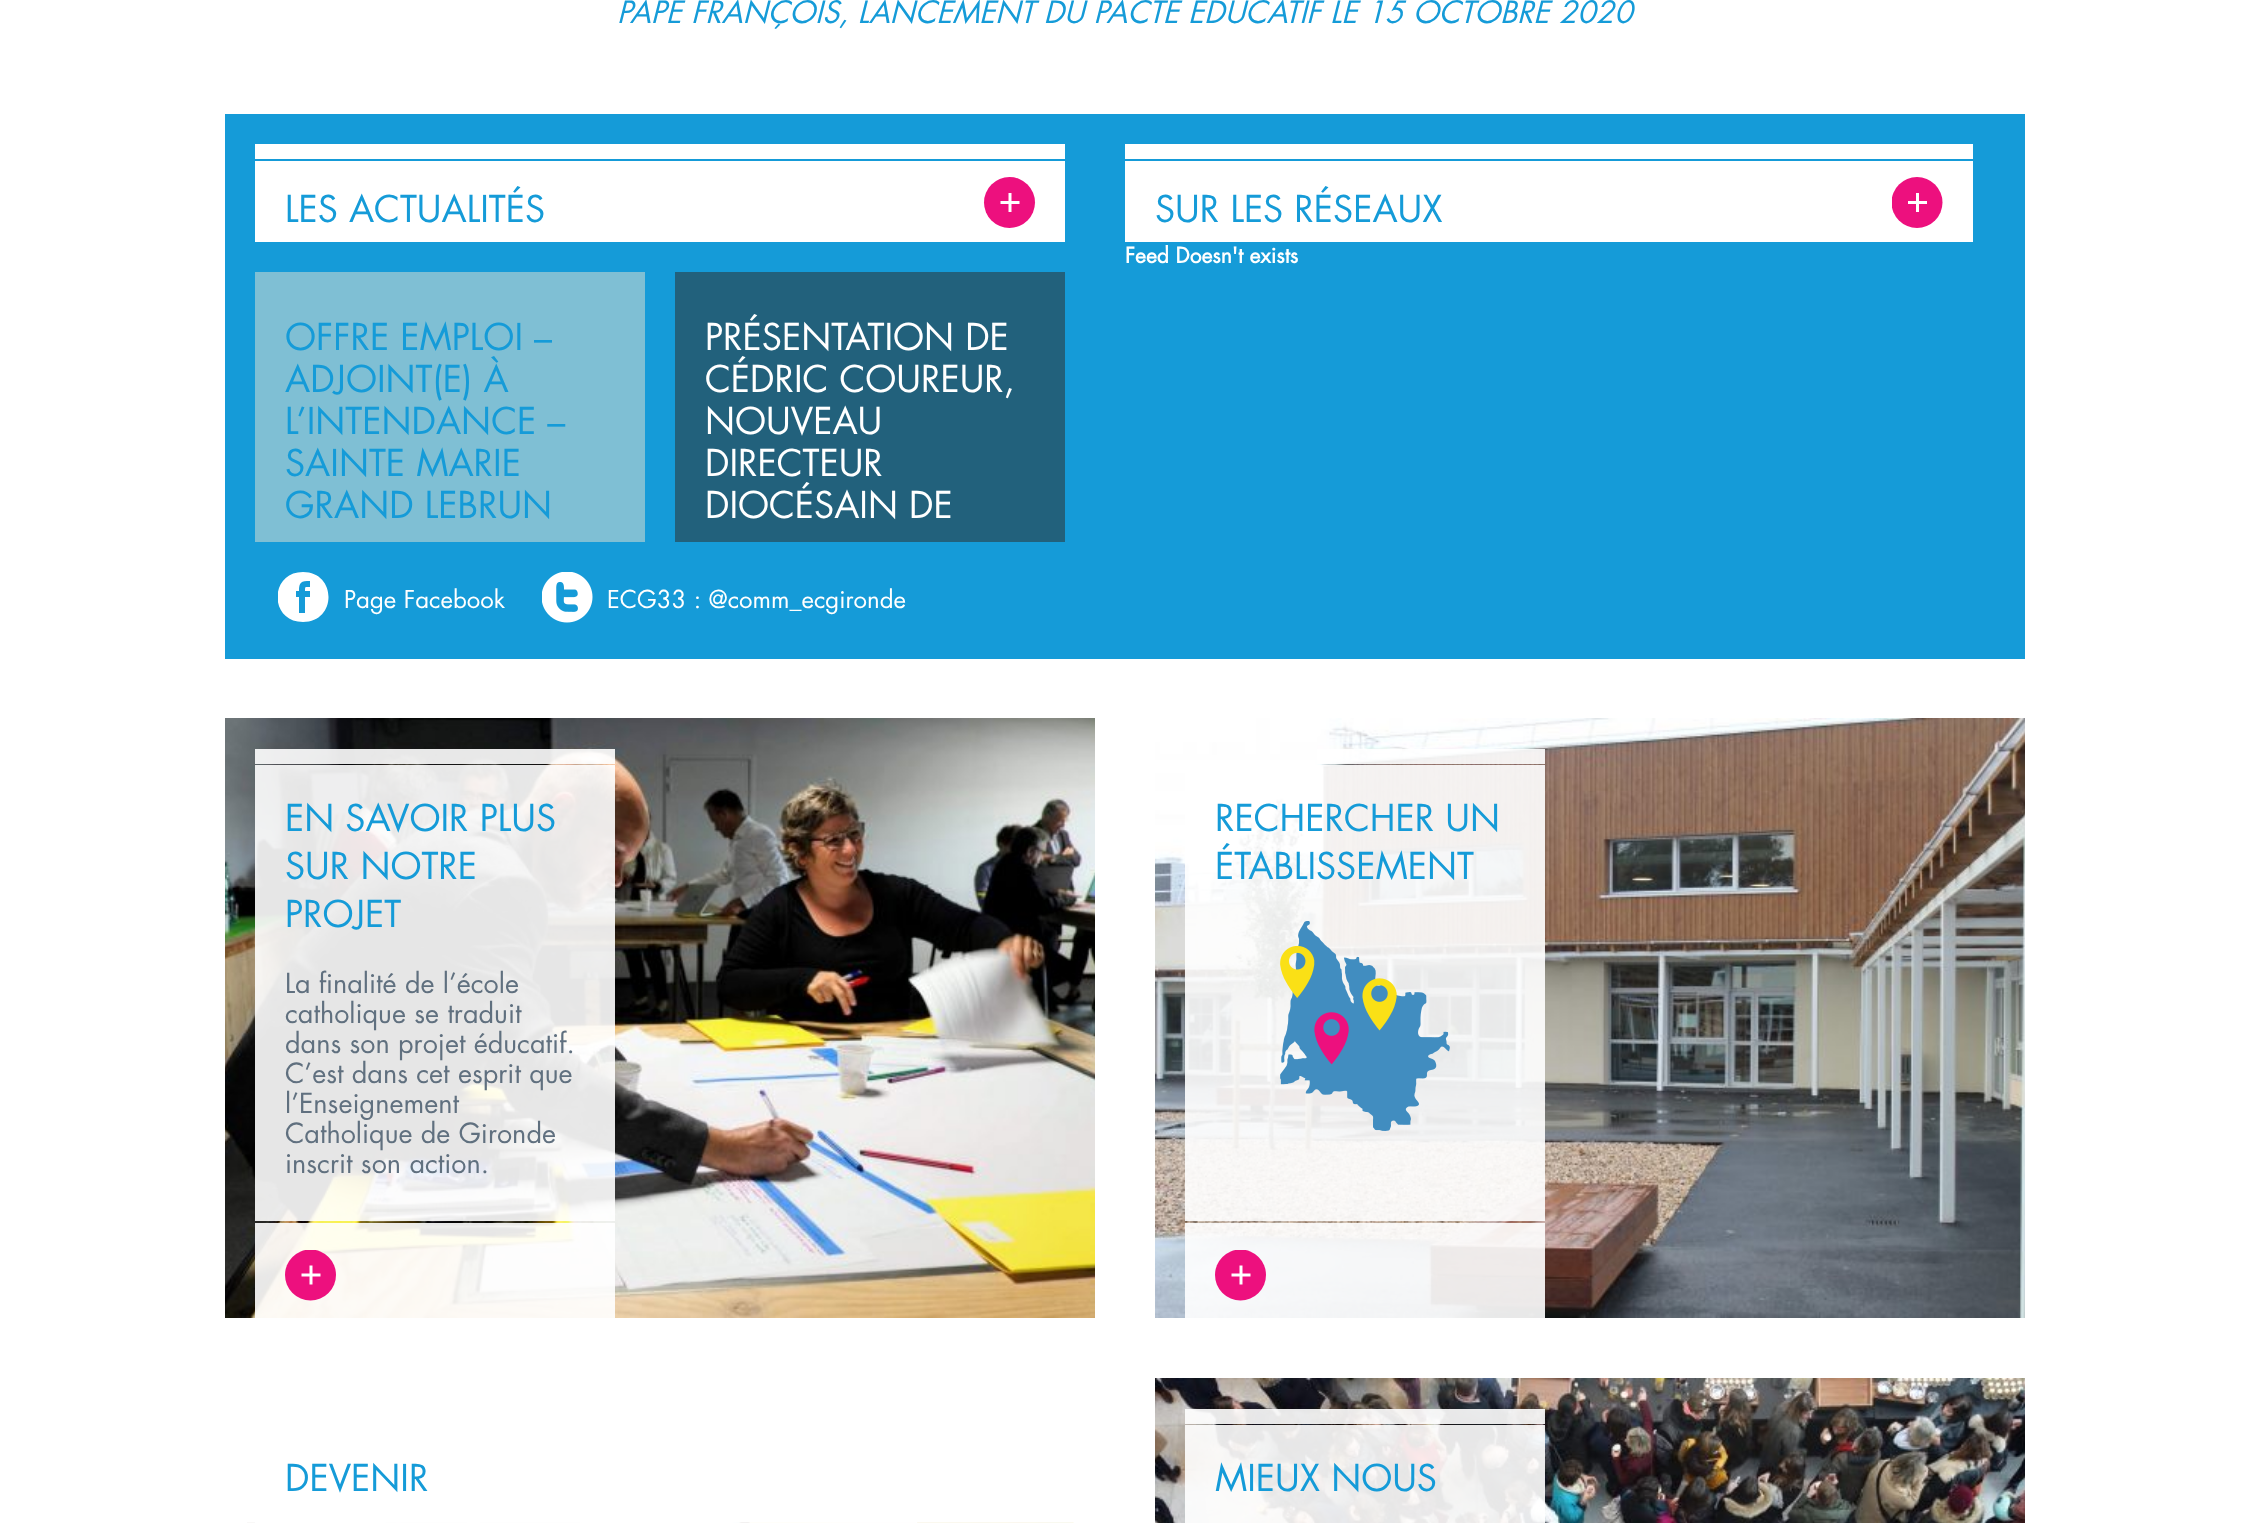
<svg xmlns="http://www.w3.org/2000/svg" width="2250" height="1523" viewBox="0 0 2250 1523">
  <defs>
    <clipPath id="clip1"><rect x="278" y="572" width="51" height="51"/></clipPath>
    <clipPath id="clip2"><rect x="1892" y="177" width="51" height="51"/></clipPath>
    <clipPath id="clip3"><rect x="285" y="1250" width="51" height="51"/></clipPath>
    <clipPath id="clip4"><rect x="1215" y="1250" width="51" height="51"/></clipPath>
  </defs>
  <rect width="100%" height="100%" fill="rgb(255,255,255)"/>
  <text x="617" y="23" font-family="Futura" font-size="30" font-style="italic" fill="rgb(21,155,216)">PAPE FRANÇOIS, LANCEMENT DU PACTE ÉDUCATIF LE 15 OCTOBRE 2020</text>
  <rect x="225" y="114" width="1800" height="545" fill="rgb(21,155,216)"/>
  <rect x="255" y="144" width="810" height="98" fill="rgb(255,255,255)"/>
  <rect x="255" y="159" width="810" height="2" fill="rgb(21,155,216)"/>
  <text x="285" y="222" font-family="Futura" font-size="36" fill="rgb(21,155,216)">LES ACTUALITÉS</text>
  <circle cx="1009.5" cy="202.5" r="25.5" fill="rgb(237,16,126)"/>
  <path d="M1008.5 204V212H1011.5V193H1008.5Z" fill="rgb(255,255,255)"/>
  <path d="M1011.5 204H1019.5V201H1000.5V204Z" fill="rgb(255,255,255)"/>
  <rect x="255" y="272" width="390" height="270" fill="rgb(127,191,212)"/>
  <g font-family="Futura" font-size="36" fill="rgb(21,155,216)">
    <text>
      <tspan x="285" y="350">OFFRE EMPLOI –</tspan>
      <tspan x="285" y="392">ADJOINT(E) À</tspan>
      <tspan x="285" y="434">L’INTENDANCE –</tspan>
      <tspan x="285" y="476">SAINTE MARIE</tspan>
      <tspan x="285" y="518">GRAND LEBRUN</tspan>
    </text>
  </g>
  <rect x="675" y="272" width="390" height="270" fill="rgb(34,97,124)"/>
  <g font-family="Futura" font-size="36" fill="rgb(255,255,255)">
    <text>
      <tspan x="705" y="350">PRÉSENTATION DE</tspan>
      <tspan x="705" y="392">CÉDRIC COUREUR,</tspan>
      <tspan x="705" y="434">NOUVEAU</tspan>
      <tspan x="705" y="476">DIRECTEUR</tspan>
      <tspan x="705" y="518">DIOCÉSAIN DE</tspan>
    </text>
  </g>
  <g clip-path="url(#clip1)">
    <path d="M303 572C269 572 269 622 303 622C337 622 337 572 303 572ZM310 597H305V613H299V597H296V591H299C299 582 301 581 310 581V587C305 587 305 586 305 591H310Z" fill="rgb(255,255,255)"/>
  </g>
  <text x="344" y="608" font-family="Futura" font-size="24" fill="rgb(255,255,255)">Page Facebook</text>
  <image x="542" y="572" width="51" height="51" href="pic1.png"/>
  <text x="607" y="608" font-family="Futura" font-size="24" fill="rgb(255,255,255)">ECG33 : @comm_ecgironde</text>
  <rect x="1125" y="144" width="848" height="98" fill="rgb(255,255,255)"/>
  <rect x="1125" y="159" width="848" height="2" fill="rgb(21,155,216)"/>
  <text x="1155" y="222" font-family="Futura" font-size="36" fill="rgb(21,155,216)">SUR LES RÉSEAUX</text>
  <g clip-path="url(#clip2)">
    <circle cx="1917" cy="202.5" r="25.5" fill="rgb(237,16,126)"/>
  </g>
  <path d="M1916 204V212H1919V193H1916Z" fill="rgb(255,255,255)"/>
  <path d="M1919 204H1927V201H1908V204Z" fill="rgb(255,255,255)"/>
  <text x="1125" y="263" font-family="Futura" font-size="21" font-weight="bold" fill="rgb(255,255,255)">Feed Doesn't exists</text>
  <image x="225" y="718" width="870" height="600" href="pic2.png"/>
  <rect x="255" y="749" width="360" height="15" fill="rgba(255,255,255,0.9)"/>
  <rect x="255" y="765" width="360" height="456" fill="rgba(255,255,255,0.9)"/>
  <g font-family="Futura" font-size="36" fill="rgb(21,155,216)">
    <text>
      <tspan x="285" y="831">EN SAVOIR PLUS</tspan>
      <tspan x="285" y="879">SUR NOTRE</tspan>
      <tspan x="285" y="927">PROJET</tspan>
    </text>
  </g>
  <g font-family="Futura" font-size="27" fill="rgb(96,112,127)">
    <text>
      <tspan x="285" y="993">La finalité de l’école</tspan>
      <tspan x="285" y="1023">catholique se traduit</tspan>
      <tspan x="285" y="1053">dans son projet éducatif.</tspan>
      <tspan x="285" y="1083">C’est dans cet esprit que</tspan>
      <tspan x="285" y="1113">l’Enseignement</tspan>
      <tspan x="285" y="1143">Catholique de Gironde</tspan>
      <tspan x="285" y="1173">inscrit son action.</tspan>
    </text>
  </g>
  <rect x="255" y="1223" width="360" height="95" fill="rgba(255,255,255,0.9)"/>
  <g clip-path="url(#clip3)">
    <circle cx="310.5" cy="1275" r="25.5" fill="rgb(237,16,126)"/>
  </g>
  <path d="M309.5 1276.5V1284.5H312.5V1265.5H309.5Z" fill="rgb(255,255,255)"/>
  <path d="M312.5 1276.5H320.5V1273.5H301.5V1276.5Z" fill="rgb(255,255,255)"/>
  <image x="1155" y="718" width="870" height="600" href="pic3.png"/>
  <rect x="1317" y="749" width="228" height="15" fill="rgba(255,255,255,0.9)"/>
  <rect x="1185" y="765" width="360" height="456" fill="rgba(255,255,255,0.9)"/>
  <g font-family="Futura" font-size="36" fill="rgb(21,155,216)">
    <text>
      <tspan x="1215" y="831">RECHERCHER UN</tspan>
      <tspan x="1215" y="879">ÉTABLISSEMENT</tspan>
    </text>
  </g>
  <image x="1280" y="921" width="170" height="210" href="pic4.png"/>
  <rect x="1185" y="1223" width="360" height="95" fill="rgba(255,255,255,0.9)"/>
  <g clip-path="url(#clip4)">
    <circle cx="1240.5" cy="1275" r="25.5" fill="rgb(237,16,126)"/>
  </g>
  <path d="M1239.5 1276.5V1284.5H1242.5V1265.5H1239.5Z" fill="rgb(255,255,255)"/>
  <path d="M1242.5 1276.5H1250.5V1273.5H1231.5V1276.5Z" fill="rgb(255,255,255)"/>
  <image x="247" y="1522" width="827" height="1" href="pic5.png"/>
  <rect x="255" y="1522" width="327" height="1" fill="rgba(255,255,255,0.9)"/>
  <text x="285" y="1491" font-family="Futura" font-size="36" fill="rgb(21,155,216)">DEVENIR</text>
  <image x="1155" y="1378" width="870" height="145" href="pic6.png"/>
  <rect x="1185" y="1409" width="360" height="15" fill="rgba(255,255,255,0.9)"/>
  <rect x="1185" y="1425" width="360" height="98" fill="rgba(255,255,255,0.9)"/>
  <text x="1215" y="1491" font-family="Futura" font-size="36" fill="rgb(21,155,216)">MIEUX NOUS</text>
</svg>
